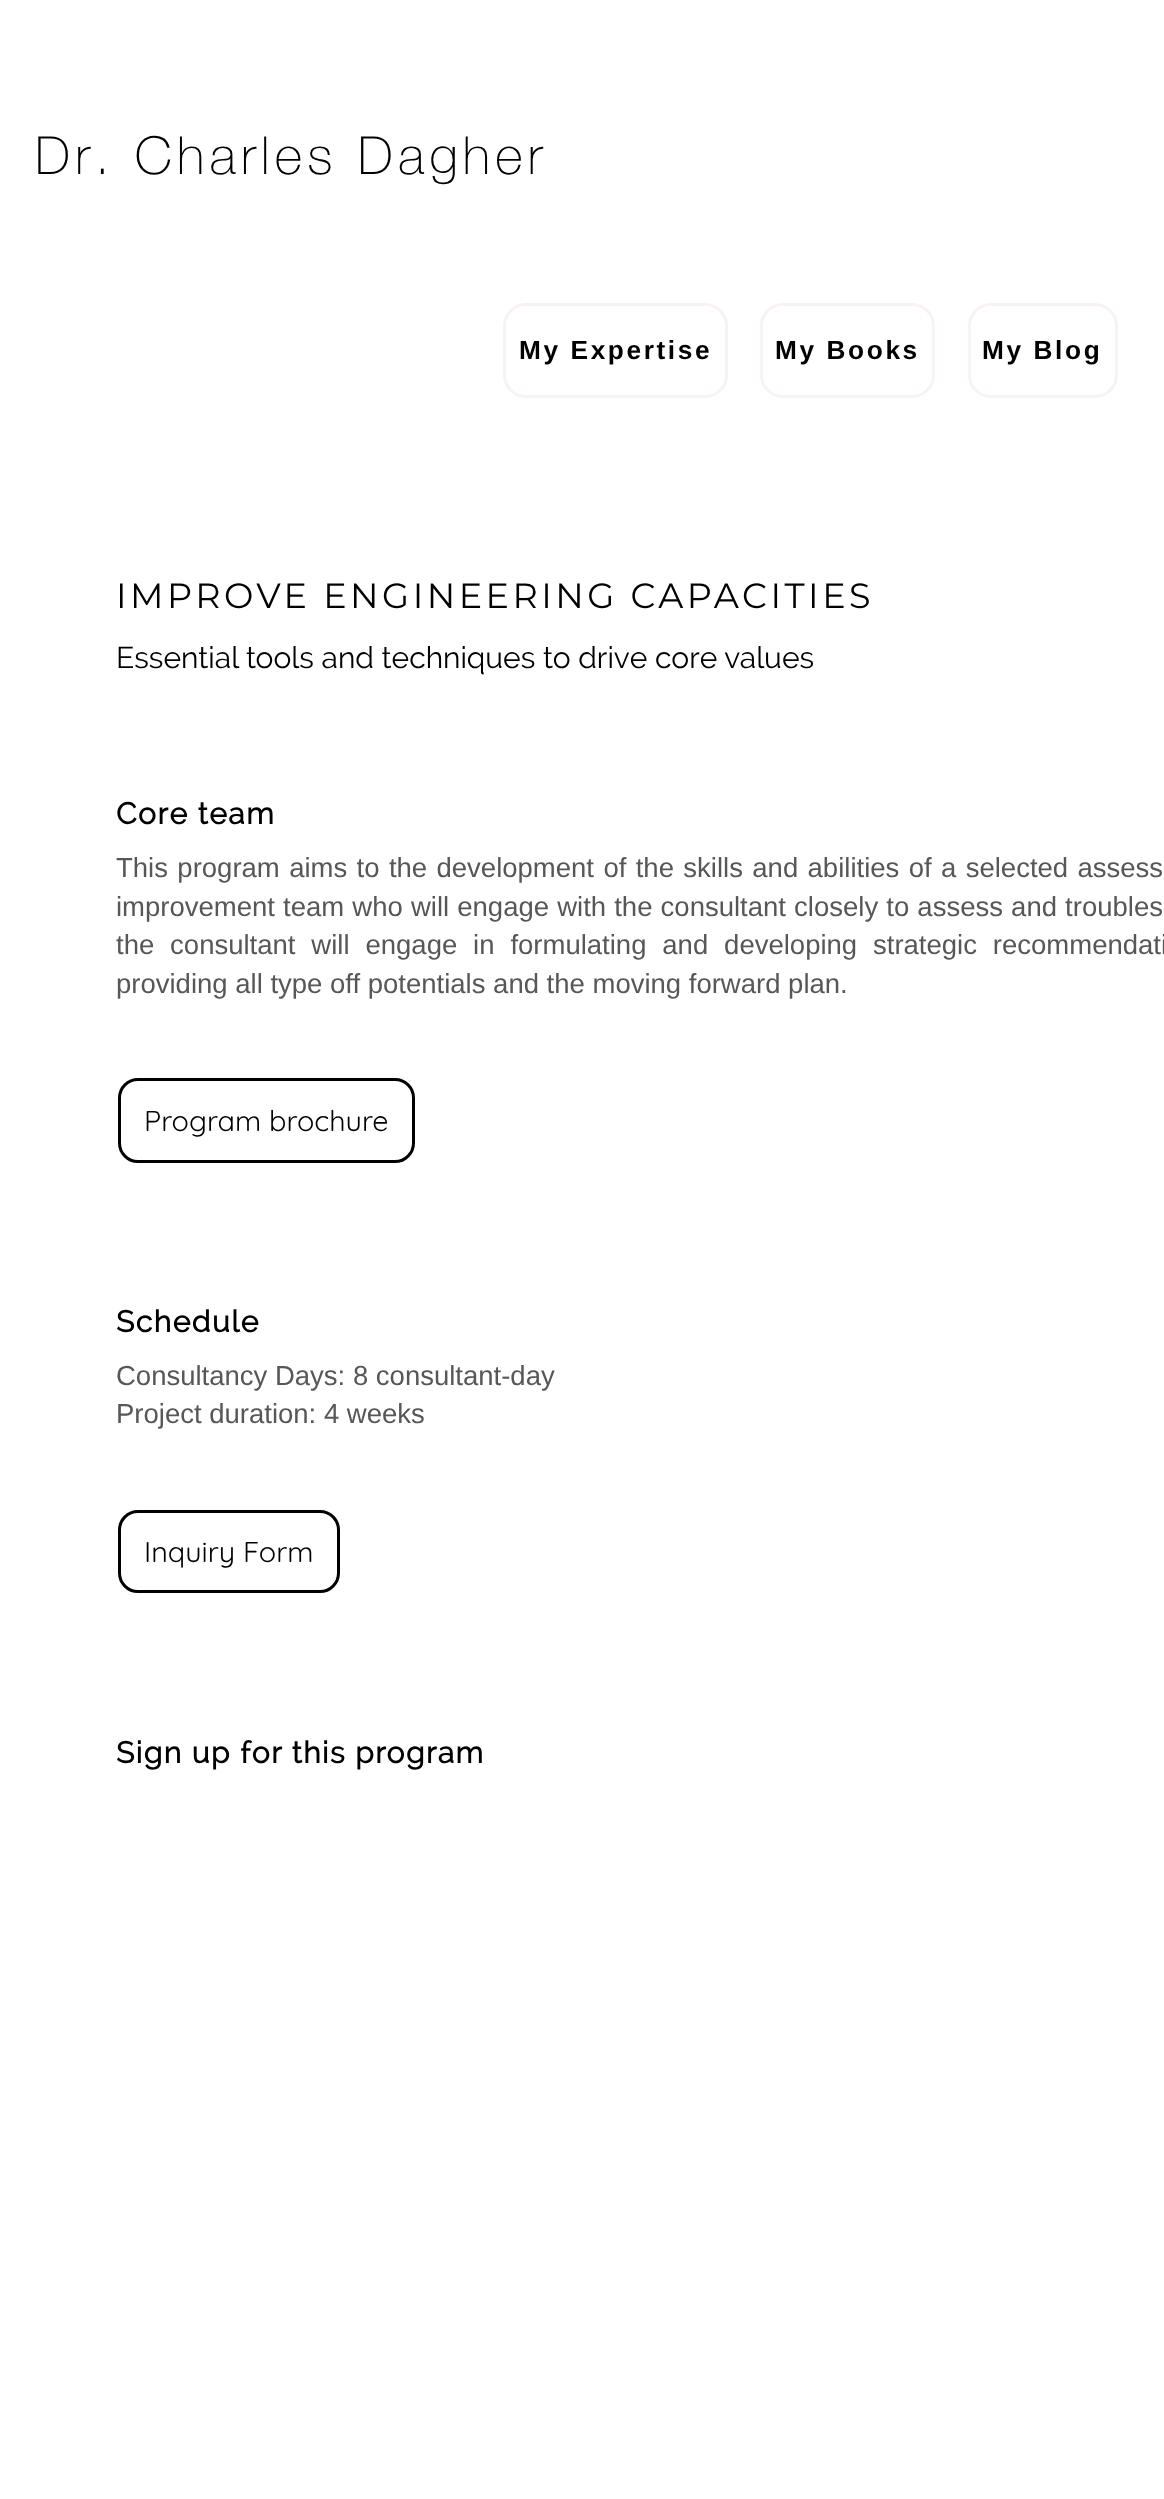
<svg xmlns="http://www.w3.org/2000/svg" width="1164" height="2499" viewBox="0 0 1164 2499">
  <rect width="100%" height="100%" fill="rgb(255,255,255)"/>
  <text x="35" y="174" font-family="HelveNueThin" font-size="52.5" font-weight="100" letter-spacing="5.25" fill="rgb(0,0,0)">Dr. Charles Dagher</text>
  <rect x="504.5" y="304.5" width="222" height="92" rx="21.5" fill="none" stroke="rgb(249,242,242)" stroke-width="3"/>
  <text x="519" y="359" font-family="Liberation Sans" font-size="26.25" font-weight="bold" letter-spacing="2.6" fill="rgb(0,0,0)">My Expertise</text>
  <rect x="761.5" y="304.5" width="172" height="92" rx="21.5" fill="none" stroke="rgb(249,242,242)" stroke-width="3"/>
  <text x="775" y="359" font-family="Liberation Sans" font-size="26.25" font-weight="bold" letter-spacing="2.6" fill="rgb(0,0,0)">My Books</text>
  <rect x="969.5" y="304.5" width="147" height="92" rx="21.5" fill="none" stroke="rgb(249,242,242)" stroke-width="3"/>
  <text x="982" y="359" font-family="Liberation Sans" font-size="26.25" font-weight="bold" letter-spacing="2.6" fill="rgb(0,0,0)">My Blog</text>
  <text x="116" y="608" font-family="Montserrat" font-size="35" font-weight="100" letter-spacing="3.5" fill="rgb(0,0,0)">IMPROVE ENGINEERING CAPACITIES</text>
  <text x="116" y="668" font-family="Raleway" font-size="30" fill="rgb(0,0,0)">Essential tools and techniques to drive core values</text>
  <text x="116" y="824" font-family="Raleway" font-size="30" font-weight="bold" letter-spacing="1.5" fill="rgb(0,0,0)">Core team</text>
  <g font-family="Liberation Sans" font-size="27.5" fill="rgb(87,87,87)">
    <text>
      <tspan x="116" y="877" word-spacing="1.75">This program aims to the development of the skills and abilities of a selected assess</tspan>
      <tspan x="116" y="916" word-spacing="0.5">improvement team who will engage with the consultant closely to assess and troubles</tspan>
      <tspan x="116" y="954" word-spacing="8.25">the consultant will engage in formulating and developing strategic recommendati</tspan>
      <tspan x="116" y="993">providing all type off potentials and the moving forward plan.</tspan>
    </text>
  </g>
  <rect x="119.5" y="1079.5" width="294" height="82" rx="18.5" fill="none" stroke="rgb(0,0,0)" stroke-width="3"/>
  <text x="144" y="1131" font-family="Quicksand" font-size="28.75" fill="rgb(0,0,0)">Program brochure</text>
  <text x="116" y="1332" font-family="Raleway" font-size="30" font-weight="bold" letter-spacing="1.5" fill="rgb(0,0,0)">Schedule</text>
  <g font-family="Liberation Sans" font-size="27.5" fill="rgb(87,87,87)">
    <text>
      <tspan x="116" y="1385">Consultancy Days: 8 consultant-day</tspan>
      <tspan x="116" y="1423">Project duration: 4 weeks</tspan>
    </text>
  </g>
  <rect x="119.5" y="1511.5" width="219" height="80" rx="18.5" fill="none" stroke="rgb(0,0,0)" stroke-width="3"/>
  <text x="144" y="1562" font-family="Quicksand" font-size="28.75" fill="rgb(0,0,0)">Inquiry Form</text>
  <text x="116" y="1763" font-family="Raleway" font-size="30" font-weight="bold" letter-spacing="1.5" fill="rgb(0,0,0)">Sign up for this program</text>
</svg>
